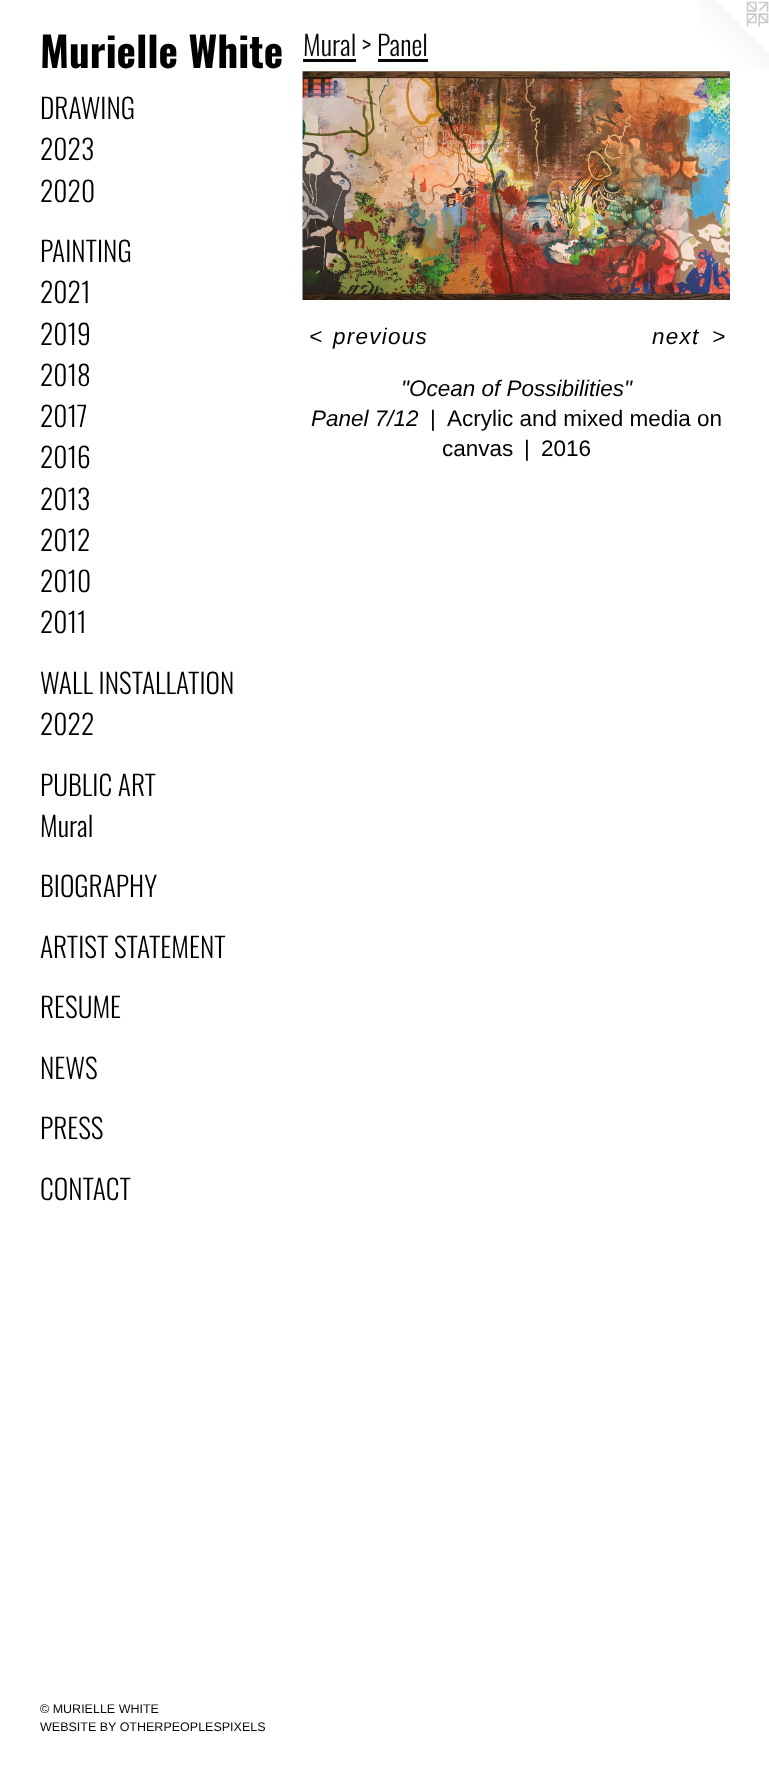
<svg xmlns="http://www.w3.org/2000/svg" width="769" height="1765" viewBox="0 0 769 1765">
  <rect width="100%" height="100%" fill="rgb(255,255,255)"/>
  <text x="40" y="68" font-family="Oswald" font-size="41.25" font-weight="bold" fill="rgb(0,0,0)">Murielle White</text>
  <g font-family="Oswald" font-size="27.5" font-weight="300" fill="rgb(0,0,0)">
    <text>
      <tspan x="40" y="119">DRAWING</tspan>
      <tspan x="40" y="160">2023</tspan>
      <tspan x="40" y="202">2020</tspan>
    </text>
    <text>
      <tspan x="40" y="262">PAINTING</tspan>
      <tspan x="40" y="303">2021</tspan>
      <tspan x="40" y="345">2019</tspan>
      <tspan x="40" y="386">2018</tspan>
      <tspan x="40" y="427">2017</tspan>
      <tspan x="40" y="468">2016</tspan>
      <tspan x="40" y="510">2013</tspan>
      <tspan x="40" y="551">2012</tspan>
      <tspan x="40" y="592">2010</tspan>
      <tspan x="40" y="633">2011</tspan>
    </text>
    <text>
      <tspan x="40" y="694">WALL INSTALLATION</tspan>
      <tspan x="40" y="735">2022</tspan>
    </text>
    <text>
      <tspan x="40" y="796">PUBLIC ART</tspan>
      <tspan x="40" y="837">Mural</tspan>
    </text>
    <text x="40" y="897">BIOGRAPHY</text>
    <text x="40" y="958">ARTIST STATEMENT</text>
    <text x="40" y="1018">RESUME</text>
    <text x="40" y="1079">NEWS</text>
    <text x="40" y="1139">PRESS</text>
    <text x="40" y="1200">CONTACT</text>
  </g>
  <g font-family="Liberation Sans" font-size="12.5" fill="rgb(8,8,8)">
    <text>
      <tspan x="40" y="1713">© MURIELLE WHITE</tspan>
      <tspan x="40" y="1731">WEBSITE BY OTHERPEOPLESPIXELS</tspan>
    </text>
  </g>
  <text x="303" y="56" font-family="Oswald" font-size="27.5" font-weight="300" fill="rgb(8,8,8)">Mural &gt; Panel</text>
  <rect x="303" y="59" width="53" height="3" fill="rgb(6,6,6)"/>
  <rect x="378" y="59" width="50" height="3" fill="rgb(6,6,6)"/>
  <image x="302" y="71" width="428" height="229" href="pic1.png"/>
  <g font-family="Liberation Sans" font-size="22.5" font-style="italic" letter-spacing="1.25" fill="rgb(0,0,0)">
    <text x="309" y="344">&lt;</text>
    <text x="333" y="344">previous</text>
    <text x="652" y="344">next</text>
    <text x="712" y="344">&gt;</text>
  </g>
  <g font-family="Liberation Sans" font-size="22.5" font-style="italic" fill="rgb(0,0,0)">
    <text x="401" y="396">"Ocean of Possibilities"</text>
    <text x="311" y="426">Panel 7/12</text>
  </g>
  <g font-family="Liberation Sans" font-size="22.5" fill="rgb(0,0,0)">
    <text x="430" y="426">|</text>
    <text x="447" y="426">Acrylic and mixed media on</text>
    <text x="442" y="456">canvas</text>
    <text x="524" y="456">|</text>
    <text x="541" y="456">2016</text>
  </g>
  <image x="700" y="0" width="69" height="69" href="pic2.png"/>
</svg>
